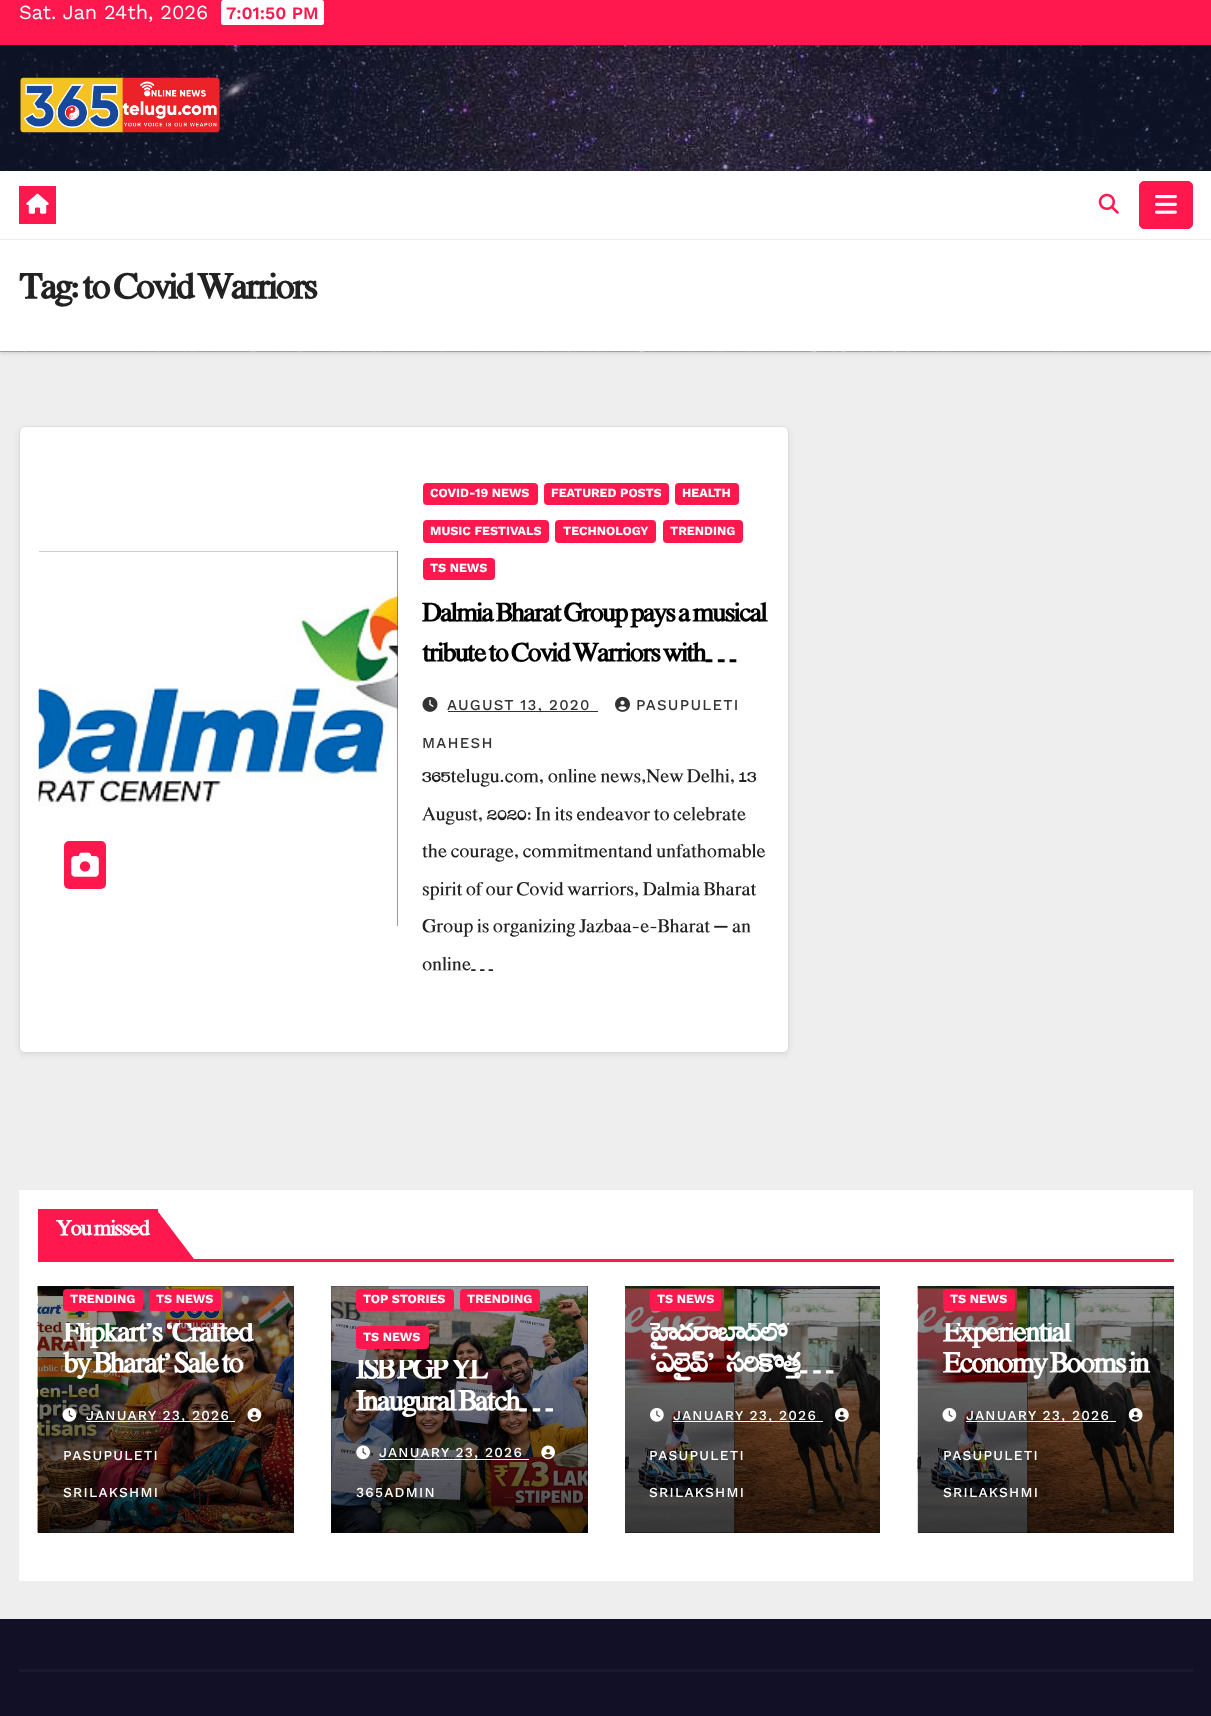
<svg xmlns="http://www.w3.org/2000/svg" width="1211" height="1716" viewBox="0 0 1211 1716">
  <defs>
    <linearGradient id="g1" gradientUnits="userSpaceOnUse" x1="166" y1="1079" x2="166" y2="1533"><stop offset="0" stop-color="rgb(0,0,0)" stop-opacity="0"/><stop offset="0.5" stop-color="rgb(0,0,0)" stop-opacity="0.4"/><stop offset="1" stop-color="rgb(0,0,0)" stop-opacity="0.7"/></linearGradient>
    <clipPath id="clip1"><rect x="63" y="1323" width="206" height="62"/></clipPath>
    <linearGradient id="g2" gradientUnits="userSpaceOnUse" x1="459" y1="1116" x2="459" y2="1533"><stop offset="0" stop-color="rgb(0,0,0)" stop-opacity="0"/><stop offset="0.5" stop-color="rgb(0,0,0)" stop-opacity="0.4"/><stop offset="1" stop-color="rgb(0,0,0)" stop-opacity="0.7"/></linearGradient>
    <clipPath id="clip2"><rect x="356" y="1360" width="207" height="63"/></clipPath>
    <linearGradient id="g3" gradientUnits="userSpaceOnUse" x1="753" y1="1041" x2="753" y2="1533"><stop offset="0" stop-color="rgb(0,0,0)" stop-opacity="0"/><stop offset="0.5" stop-color="rgb(0,0,0)" stop-opacity="0.4"/><stop offset="1" stop-color="rgb(0,0,0)" stop-opacity="0.7"/></linearGradient>
    <clipPath id="clip3"><rect x="650" y="1323" width="205" height="62"/></clipPath>
    <linearGradient id="g4" gradientUnits="userSpaceOnUse" x1="1046" y1="1004" x2="1046" y2="1533"><stop offset="0" stop-color="rgb(0,0,0)" stop-opacity="0"/><stop offset="0.5" stop-color="rgb(0,0,0)" stop-opacity="0.4"/><stop offset="1" stop-color="rgb(0,0,0)" stop-opacity="0.7"/></linearGradient>
    <clipPath id="clip4"><rect x="943" y="1323" width="206" height="62"/></clipPath>
  </defs>
  <rect width="100%" height="100%" fill="rgb(238,238,238)"/>
  <rect x="0" y="0" width="1211" height="45" fill="rgb(255,24,78)"/>
  <text x="19" y="19" font-family="Work Sans" font-size="20" fill="rgb(255,255,255)">Sat. Jan 24th, 2026</text>
  <rect x="221" y="0" width="103" height="25" rx="2.5" fill="rgb(255,255,255)"/>
  <text x="226" y="19" font-family="Work Sans" font-size="17.5" font-weight="600" fill="rgb(255,24,78)">7:01:50 PM</text>
  <image x="0" y="45" width="1211" height="126" href="pic1.png"/>
  <image x="20" y="77" width="200" height="56" href="pic2.png"/>
  <rect x="0" y="240" width="1211" height="113" fill="rgba(0,0,0,0.15)" filter="blur(2px)"/>
  <rect x="0" y="239" width="1211" height="1" fill="rgb(237,237,237)"/>
  <rect x="0" y="171" width="1211" height="68" fill="rgb(255,255,255)"/>
  <rect x="19" y="186" width="37" height="38" fill="rgb(255,24,78)"/>
  <image x="26" y="193" width="23" height="21" href="pic3.png"/>
  <image x="1098" y="193" width="21" height="21" href="pic4.png"/>
  <rect x="1139.5" y="181.5" width="53" height="47" rx="4.5" fill="rgb(255,24,78)" stroke="rgb(255,24,78)"/>
  <image x="1155" y="195" width="22" height="19" href="pic5.png"/>
  <image x="0" y="351" width="1211" height="1" href="pic6.png"/>
  <rect x="0" y="240" width="1211" height="111" fill="rgb(255,255,255)"/>
  <text x="19" y="298" font-family="Sree Krushnadevaraya" font-size="37.5" font-weight="bold" letter-spacing="-1.9" fill="rgb(34,34,34)">Tag: to Covid Warriors</text>
  <rect x="19" y="429" width="770" height="626" rx="6" fill="rgba(0,0,0,0.08)" filter="blur(2.5px)"/>
  <rect x="19.5" y="426.5" width="769" height="626" rx="5.5" fill="rgb(255,255,255)" stroke="rgb(221,220,220)"/>
  <rect x="39" y="551" width="359" height="375" fill="rgb(51,51,51)"/>
  <image x="38" y="551" width="360" height="375" href="pic7.png"/>
  <rect x="64" y="841" width="42" height="48" rx="5" fill="rgb(255,24,78)"/>
  <image x="71" y="852" width="28" height="25" href="pic8.png"/>
  <rect x="423" y="483" width="115" height="22" rx="4" fill="rgb(255,24,78)"/>
  <text x="430" y="497" font-family="Work Sans" font-size="12.5" font-weight="bold" fill="rgb(255,255,255)">COVID-19 NEWS</text>
  <rect x="544" y="483" width="125" height="22" rx="4" fill="rgb(255,24,78)"/>
  <text x="551" y="497" font-family="Work Sans" font-size="12.5" font-weight="bold" fill="rgb(255,255,255)">FEATURED POSTS</text>
  <rect x="675" y="483" width="64" height="22" rx="4" fill="rgb(255,24,78)"/>
  <text x="682" y="497" font-family="Work Sans" font-size="12.5" font-weight="bold" fill="rgb(255,255,255)">HEALTH</text>
  <rect x="423" y="520" width="126" height="23" rx="4" fill="rgb(255,24,78)"/>
  <text x="430" y="535" font-family="Work Sans" font-size="12.5" font-weight="bold" fill="rgb(255,255,255)">MUSIC FESTIVALS</text>
  <rect x="555" y="520" width="101" height="23" rx="4" fill="rgb(255,24,78)"/>
  <text x="563" y="535" font-family="Work Sans" font-size="12.5" font-weight="bold" fill="rgb(255,255,255)">TECHNOLOGY</text>
  <rect x="663" y="520" width="80" height="23" rx="4" fill="rgb(255,24,78)"/>
  <text x="670" y="535" font-family="Work Sans" font-size="12.5" font-weight="bold" fill="rgb(255,255,255)">TRENDING</text>
  <rect x="423" y="558" width="72" height="22" rx="4" fill="rgb(255,24,78)"/>
  <text x="430" y="572" font-family="Work Sans" font-size="12.5" font-weight="bold" fill="rgb(255,255,255)">TS NEWS</text>
  <g font-family="Sree Krushnadevaraya" font-size="27.5" font-weight="bold" letter-spacing="-1.4" fill="rgb(0,0,0)">
    <text>
      <tspan x="422" y="621">Dalmia Bharat Group pays a musical</tspan>
      <tspan x="422" y="661">tribute to Covid Warriors with…</tspan>
    </text>
  </g>
  <image x="615" y="696" width="15" height="16" href="pic9.png"/>
  <g font-family="Work Sans" font-size="15" font-weight="500" letter-spacing="1.25" fill="rgb(51,51,51)">
    <text x="636" y="710">PASUPULETI</text>
    <text x="422" y="748">MAHESH</text>
  </g>
  <image x="422" y="696" width="16" height="16" href="pic10.png"/>
  <rect x="448" y="711" width="150" height="1" fill="rgb(51,51,51)"/>
  <text x="447" y="710" font-family="Work Sans" font-size="15" font-weight="500" letter-spacing="1.25" fill="rgb(51,51,51)">AUGUST 13, 2020</text>
  <g font-family="Sree Krushnadevaraya" font-size="20" font-weight="500" fill="rgb(34,34,34)">
    <text>
      <tspan x="422" y="782">365telugu.com, online news,New Delhi, 13</tspan>
      <tspan x="422" y="820">August, 2020: In its endeavor to celebrate</tspan>
      <tspan x="422" y="857">the courage, commitmentand unfathomable</tspan>
      <tspan x="422" y="895">spirit of our Covid warriors, Dalmia Bharat</tspan>
      <tspan x="422" y="932">Group is organizing Jazbaa-e-Bharat – an</tspan>
      <tspan x="422" y="970">online…</tspan>
    </text>
  </g>
  <rect x="19" y="1190" width="1174" height="391" fill="rgb(255,255,255)"/>
  <rect x="38" y="1259" width="1136" height="3" fill="rgb(255,24,78)"/>
  <rect x="38" y="1209" width="120" height="50" fill="rgb(255,24,78)"/>
  <text x="56" y="1235" font-family="Sree Krushnadevaraya" font-size="22.5" font-weight="bold" letter-spacing="-1.1" fill="rgb(255,255,255)">You missed</text>
  <path d="M156 1259V1209L194 1259Z" fill="rgb(255,24,78)"/>
  <rect x="38" y="1286" width="256" height="247" fill="rgb(51,51,51)"/>
  <image x="37" y="1286" width="257" height="247" href="pic11.png"/>
  <rect x="38" y="1286" width="256" height="247" fill="url(#g1)"/>
  <rect x="63" y="1289" width="80" height="22" rx="4" fill="rgb(255,24,78)"/>
  <text x="70" y="1303" font-family="Work Sans" font-size="12.5" font-weight="bold" fill="rgb(255,255,255)">TRENDING</text>
  <rect x="149" y="1289" width="72" height="22" rx="4" fill="rgb(255,24,78)"/>
  <text x="156" y="1303" font-family="Work Sans" font-size="12.5" font-weight="bold" fill="rgb(255,255,255)">TS NEWS</text>
  <g clip-path="url(#clip1)">
    <text x="63" y="1341" font-family="Sree Krushnadevaraya" font-size="30" font-weight="bold" letter-spacing="-1.5" fill="rgb(255,255,255)">Flipkart’s ‘Crafted</text>
  </g>
  <text x="63" y="1372" font-family="Sree Krushnadevaraya" font-size="30" font-weight="bold" letter-spacing="-1.5" fill="rgb(255,255,255)">by Bharat’ Sale to</text>
  <image x="62" y="1408" width="15" height="14" href="pic12.png"/>
  <rect x="86" y="1421" width="149" height="1" fill="rgb(255,255,255)"/>
  <text x="86" y="1420" font-family="Work Sans" font-size="13.75" font-weight="500" letter-spacing="1.25" fill="rgb(255,255,255)">JANUARY 23, 2026</text>
  <image x="247" y="1408" width="15" height="14" href="pic13.png"/>
  <g font-family="Work Sans" font-size="13.75" font-weight="500" letter-spacing="1.25" fill="rgb(255,255,255)">
    <text x="63" y="1460">PASUPULETI</text>
    <text x="63" y="1497">SRILAKSHMI</text>
  </g>
  <rect x="331" y="1286" width="257" height="247" fill="rgb(51,51,51)"/>
  <image x="331" y="1286" width="257" height="247" href="pic14.png"/>
  <rect x="331" y="1286" width="257" height="247" fill="url(#g2)"/>
  <rect x="356" y="1289" width="98" height="22" rx="4" fill="rgb(255,24,78)"/>
  <text x="363" y="1303" font-family="Work Sans" font-size="12.5" font-weight="bold" fill="rgb(255,255,255)">TOP STORIES</text>
  <rect x="460" y="1289" width="80" height="22" rx="4" fill="rgb(255,24,78)"/>
  <text x="467" y="1303" font-family="Work Sans" font-size="12.5" font-weight="bold" fill="rgb(255,255,255)">TRENDING</text>
  <rect x="356" y="1326" width="73" height="23" rx="4" fill="rgb(255,24,78)"/>
  <text x="363" y="1341" font-family="Work Sans" font-size="12.5" font-weight="bold" fill="rgb(255,255,255)">TS NEWS</text>
  <g clip-path="url(#clip2)">
    <text x="356" y="1378" font-family="Sree Krushnadevaraya" font-size="30" font-weight="bold" letter-spacing="-1.5" fill="rgb(255,255,255)">ISB PGP YL</text>
  </g>
  <text x="356" y="1410" font-family="Sree Krushnadevaraya" font-size="30" font-weight="bold" letter-spacing="-1.5" fill="rgb(255,255,255)">Inaugural Batch…</text>
  <image x="356" y="1445" width="14" height="15" href="pic15.png"/>
  <rect x="379" y="1459" width="150" height="1" fill="rgb(255,255,255)"/>
  <text x="379" y="1457" font-family="Work Sans" font-size="13.75" font-weight="500" letter-spacing="1.25" fill="rgb(255,255,255)">JANUARY 23, 2026</text>
  <image x="541" y="1445" width="14" height="15" href="pic16.png"/>
  <text x="356" y="1497" font-family="Work Sans" font-size="13.75" font-weight="500" letter-spacing="1.25" fill="rgb(255,255,255)">365ADMIN</text>
  <rect x="625" y="1286" width="255" height="247" fill="rgb(51,51,51)"/>
  <image x="625" y="1286" width="255" height="247" href="pic17.png"/>
  <rect x="625" y="1286" width="255" height="247" fill="url(#g3)"/>
  <rect x="650" y="1289" width="71" height="22" rx="4" fill="rgb(255,24,78)"/>
  <text x="657" y="1303" font-family="Work Sans" font-size="12.5" font-weight="bold" fill="rgb(255,255,255)">TS NEWS</text>
  <g clip-path="url(#clip3)">
    <text x="649" y="1341" font-family="Sree Krushnadevaraya" font-size="30" font-weight="bold" letter-spacing="-1.5" fill="rgb(255,255,255)">హైదరాబాద్‌లో</text>
  </g>
  <text x="649" y="1372" word-spacing="9" font-family="Sree Krushnadevaraya" font-size="30" font-weight="bold" letter-spacing="-1.5" fill="rgb(255,255,255)">‘ఎలైవ్’ సరికొత్త…</text>
  <image x="650" y="1408" width="14" height="14" href="pic18.png"/>
  <rect x="673" y="1421" width="150" height="1" fill="rgb(255,255,255)"/>
  <text x="673" y="1420" font-family="Work Sans" font-size="13.75" font-weight="500" letter-spacing="1.25" fill="rgb(255,255,255)">JANUARY 23, 2026</text>
  <image x="835" y="1408" width="14" height="14" href="pic19.png"/>
  <g font-family="Work Sans" font-size="13.75" font-weight="500" letter-spacing="1.25" fill="rgb(255,255,255)">
    <text x="649" y="1460">PASUPULETI</text>
    <text x="649" y="1497">SRILAKSHMI</text>
  </g>
  <rect x="918" y="1286" width="256" height="247" fill="rgb(51,51,51)"/>
  <image x="917" y="1286" width="257" height="247" href="pic20.png"/>
  <rect x="918" y="1286" width="256" height="247" fill="url(#g4)"/>
  <rect x="943" y="1289" width="72" height="22" rx="4" fill="rgb(255,24,78)"/>
  <text x="950" y="1303" font-family="Work Sans" font-size="12.5" font-weight="bold" fill="rgb(255,255,255)">TS NEWS</text>
  <g clip-path="url(#clip4)">
    <text x="943" y="1341" font-family="Sree Krushnadevaraya" font-size="30" font-weight="bold" letter-spacing="-1.5" fill="rgb(255,255,255)">Experiential</text>
  </g>
  <text x="943" y="1372" font-family="Sree Krushnadevaraya" font-size="30" font-weight="bold" letter-spacing="-1.5" fill="rgb(255,255,255)">Economy Booms in</text>
  <image x="942" y="1408" width="15" height="14" href="pic21.png"/>
  <rect x="966" y="1421" width="150" height="1" fill="rgb(255,255,255)"/>
  <text x="966" y="1420" font-family="Work Sans" font-size="13.75" font-weight="500" letter-spacing="1.25" fill="rgb(255,255,255)">JANUARY 23, 2026</text>
  <image x="1128" y="1408" width="15" height="14" href="pic22.png"/>
  <g font-family="Work Sans" font-size="13.75" font-weight="500" letter-spacing="1.25" fill="rgb(255,255,255)">
    <text x="943" y="1460">PASUPULETI</text>
    <text x="943" y="1497">SRILAKSHMI</text>
  </g>
  <rect x="0" y="1619" width="1211" height="97" fill="rgb(18,16,38)"/>
  <rect x="19" y="1669" width="1174" height="3" fill="rgb(26,24,46)"/>
</svg>
